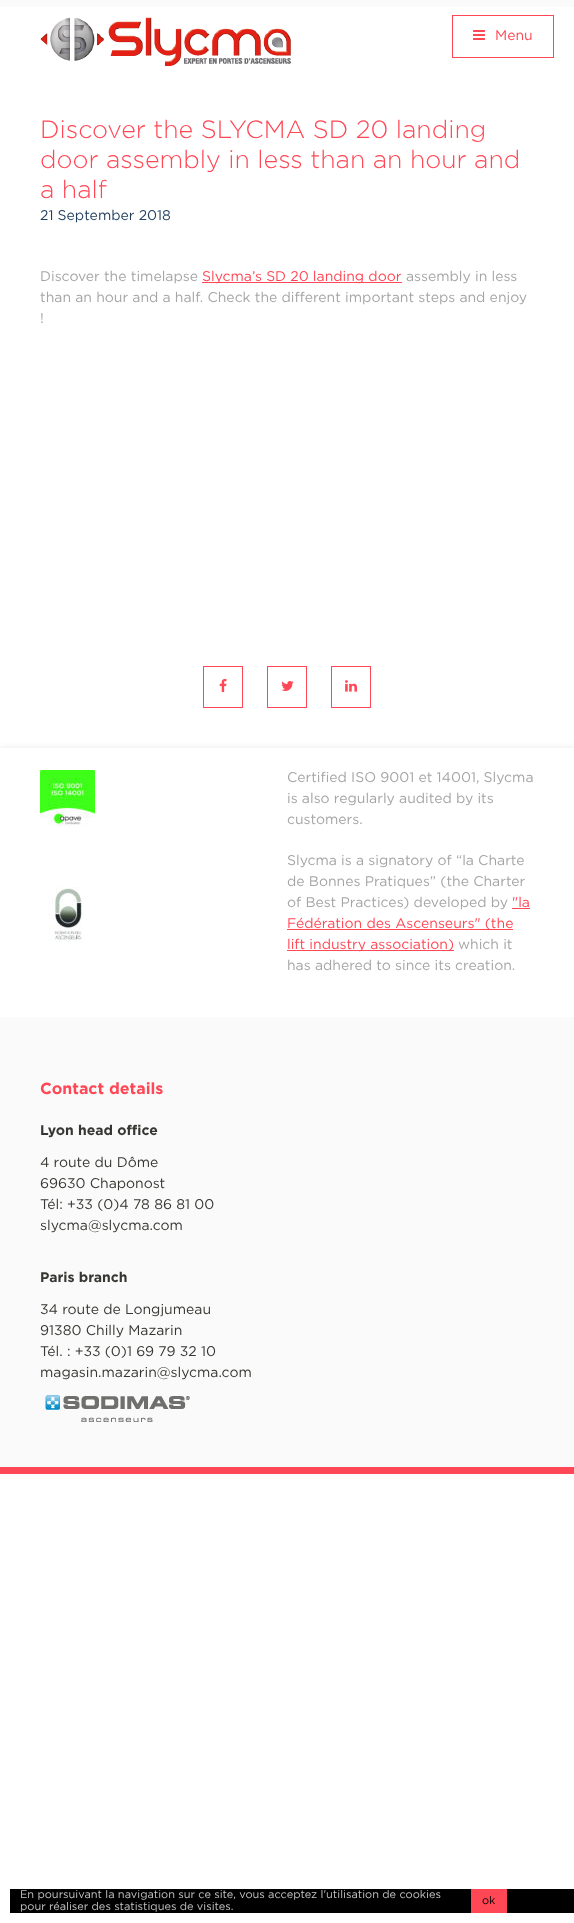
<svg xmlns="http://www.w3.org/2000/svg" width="574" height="1923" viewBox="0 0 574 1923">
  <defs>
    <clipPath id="clip1"><rect x="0" y="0" width="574" height="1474"/></clipPath>
  </defs>
  <rect width="100%" height="100%" fill="rgb(255,255,255)"/>
  <rect x="0" y="0" width="574" height="7" fill="rgb(250,250,250)"/>
  <image x="40" y="17" width="251" height="49" href="pic1.png"/>
  <rect x="452.5" y="15.5" width="101" height="42" fill="none" stroke="rgb(255,71,85)"/>
  <image x="473" y="30" width="12" height="10" href="pic2.png"/>
  <text x="495" y="40" font-family="Gotham" font-size="14" fill="rgb(255,71,85)">Menu</text>
  <g font-family="Gotham" font-size="25" font-weight="300" fill="rgb(255,71,85)">
    <text>
      <tspan x="40" y="138">Discover the SLYCMA SD 20 landing</tspan>
      <tspan x="40" y="168">door assembly in less than an hour and</tspan>
      <tspan x="40" y="198">a half</tspan>
    </text>
  </g>
  <text x="40" y="220" font-family="Gotham" font-size="14" fill="rgb(34,63,96)">21 September 2018</text>
  <text x="40" y="281" font-family="Gotham" font-size="14" fill="rgb(165,165,165)">Discover the timelapse</text>
  <rect x="202" y="282" width="200" height="1" fill="rgb(255,71,85)"/>
  <text x="202" y="281" font-family="Gotham" font-size="14" fill="rgb(255,71,85)">Slycma’s SD 20 landing door</text>
  <g font-family="Gotham" font-size="14" fill="rgb(165,165,165)">
    <text x="406" y="281">assembly in less</text>
    <text>
      <tspan x="40" y="302">than an hour and a half. Check the different important steps and enjoy</tspan>
      <tspan x="40" y="323">!</tspan>
    </text>
  </g>
  <rect x="203.5" y="666.5" width="39" height="41" fill="none" stroke="rgb(255,71,85)"/>
  <image x="219" y="679" width="8" height="13" href="pic3.png"/>
  <rect x="267.5" y="666.5" width="39" height="41" fill="none" stroke="rgb(255,71,85)"/>
  <image x="281" y="681" width="13" height="10" href="pic4.png"/>
  <rect x="331.5" y="666.5" width="39" height="41" fill="none" stroke="rgb(255,71,85)"/>
  <image x="345" y="680" width="12" height="12" href="pic5.png"/>
  <g clip-path="url(#clip1)">
    <rect x="0" y="748" width="574" height="726" fill="rgba(0,0,0,0.09)" filter="blur(3px)"/>
  </g>
  <rect x="0" y="1017" width="574" height="450" fill="rgb(250,250,250)"/>
  <rect x="0" y="1467" width="574" height="7" fill="rgb(255,71,85)"/>
  <rect x="0" y="748" width="574" height="269" fill="rgb(255,255,255)"/>
  <image x="40" y="770" width="55" height="56" href="pic6.png"/>
  <g font-family="Gotham" font-size="14" fill="rgb(165,165,165)">
    <text>
      <tspan x="287" y="782">Certified ISO 9001 et 14001, Slycma</tspan>
      <tspan x="287" y="803">is also regularly audited by its</tspan>
      <tspan x="287" y="824">customers.</tspan>
    </text>
  </g>
  <image x="48" y="887" width="36" height="55" href="pic7.png"/>
  <g font-family="Gotham" font-size="14" fill="rgb(165,165,165)">
    <text>
      <tspan x="287" y="865">Slycma is a signatory of “la Charte</tspan>
      <tspan x="287" y="886">de Bonnes Pratiques” (the Charter</tspan>
      <tspan x="287" y="907">of Best Practices) developed by</tspan>
    </text>
  </g>
  <text x="512" y="907" font-family="Gotham" font-size="14" fill="rgb(255,71,85)">"la</text>
  <rect x="512" y="908" width="18" height="1" fill="rgb(255,71,85)"/>
  <rect x="287" y="929" width="226" height="1" fill="rgb(255,71,85)"/>
  <text x="287" y="928" font-family="Gotham" font-size="14" fill="rgb(255,71,85)">Fédération des Ascenseurs" (the</text>
  <rect x="287" y="950" width="167" height="1" fill="rgb(255,71,85)"/>
  <text x="287" y="949" font-family="Gotham" font-size="14" fill="rgb(255,71,85)">lift industry association)</text>
  <g font-family="Gotham" font-size="14" fill="rgb(165,165,165)">
    <text x="458" y="949">which it</text>
    <text x="287" y="970">has adhered to since its creation.</text>
  </g>
  <text x="40" y="1094" font-family="Gotham" font-size="16" font-weight="bold" fill="rgb(255,71,85)">Contact details</text>
  <text x="40" y="1135" font-family="Gotham" font-size="14" font-weight="bold" fill="rgb(54,54,50)">Lyon head office</text>
  <g font-family="Gotham" font-size="14" fill="rgb(54,54,50)">
    <text>
      <tspan x="40" y="1167">4 route du Dôme</tspan>
      <tspan x="40" y="1188">69630 Chaponost</tspan>
      <tspan x="40" y="1209">Tél: +33 (0)4 78 86 81 00</tspan>
      <tspan x="40" y="1230">slycma@slycma.com</tspan>
    </text>
  </g>
  <text x="40" y="1282" font-family="Gotham" font-size="14" font-weight="bold" fill="rgb(54,54,50)">Paris branch</text>
  <g font-family="Gotham" font-size="14" fill="rgb(54,54,50)">
    <text>
      <tspan x="40" y="1314">34 route de Longjumeau</tspan>
      <tspan x="40" y="1335">91380 Chilly Mazarin</tspan>
      <tspan x="40" y="1356">Tél. : +33 (0)1 69 79 32 10</tspan>
      <tspan x="40" y="1377">magasin.mazarin@slycma.com</tspan>
    </text>
  </g>
  <image x="45" y="1395" width="145" height="27" href="pic8.png"/>
  <rect x="10" y="1889" width="564" height="24" fill="rgb(0,0,0)"/>
  <g font-family="Gotham" font-size="11" fill="rgb(197,197,197)">
    <text>
      <tspan x="20" y="1898">En poursuivant la navigation sur ce site, vous acceptez l'utilisation de cookies</tspan>
      <tspan x="20" y="1910">pour réaliser des statistiques de visites.</tspan>
    </text>
  </g>
  <rect x="471" y="1889" width="36" height="24" fill="rgb(255,71,85)"/>
  <text x="482" y="1904" font-family="Gotham" font-size="11" fill="rgb(0,0,0)">ok</text>
</svg>
